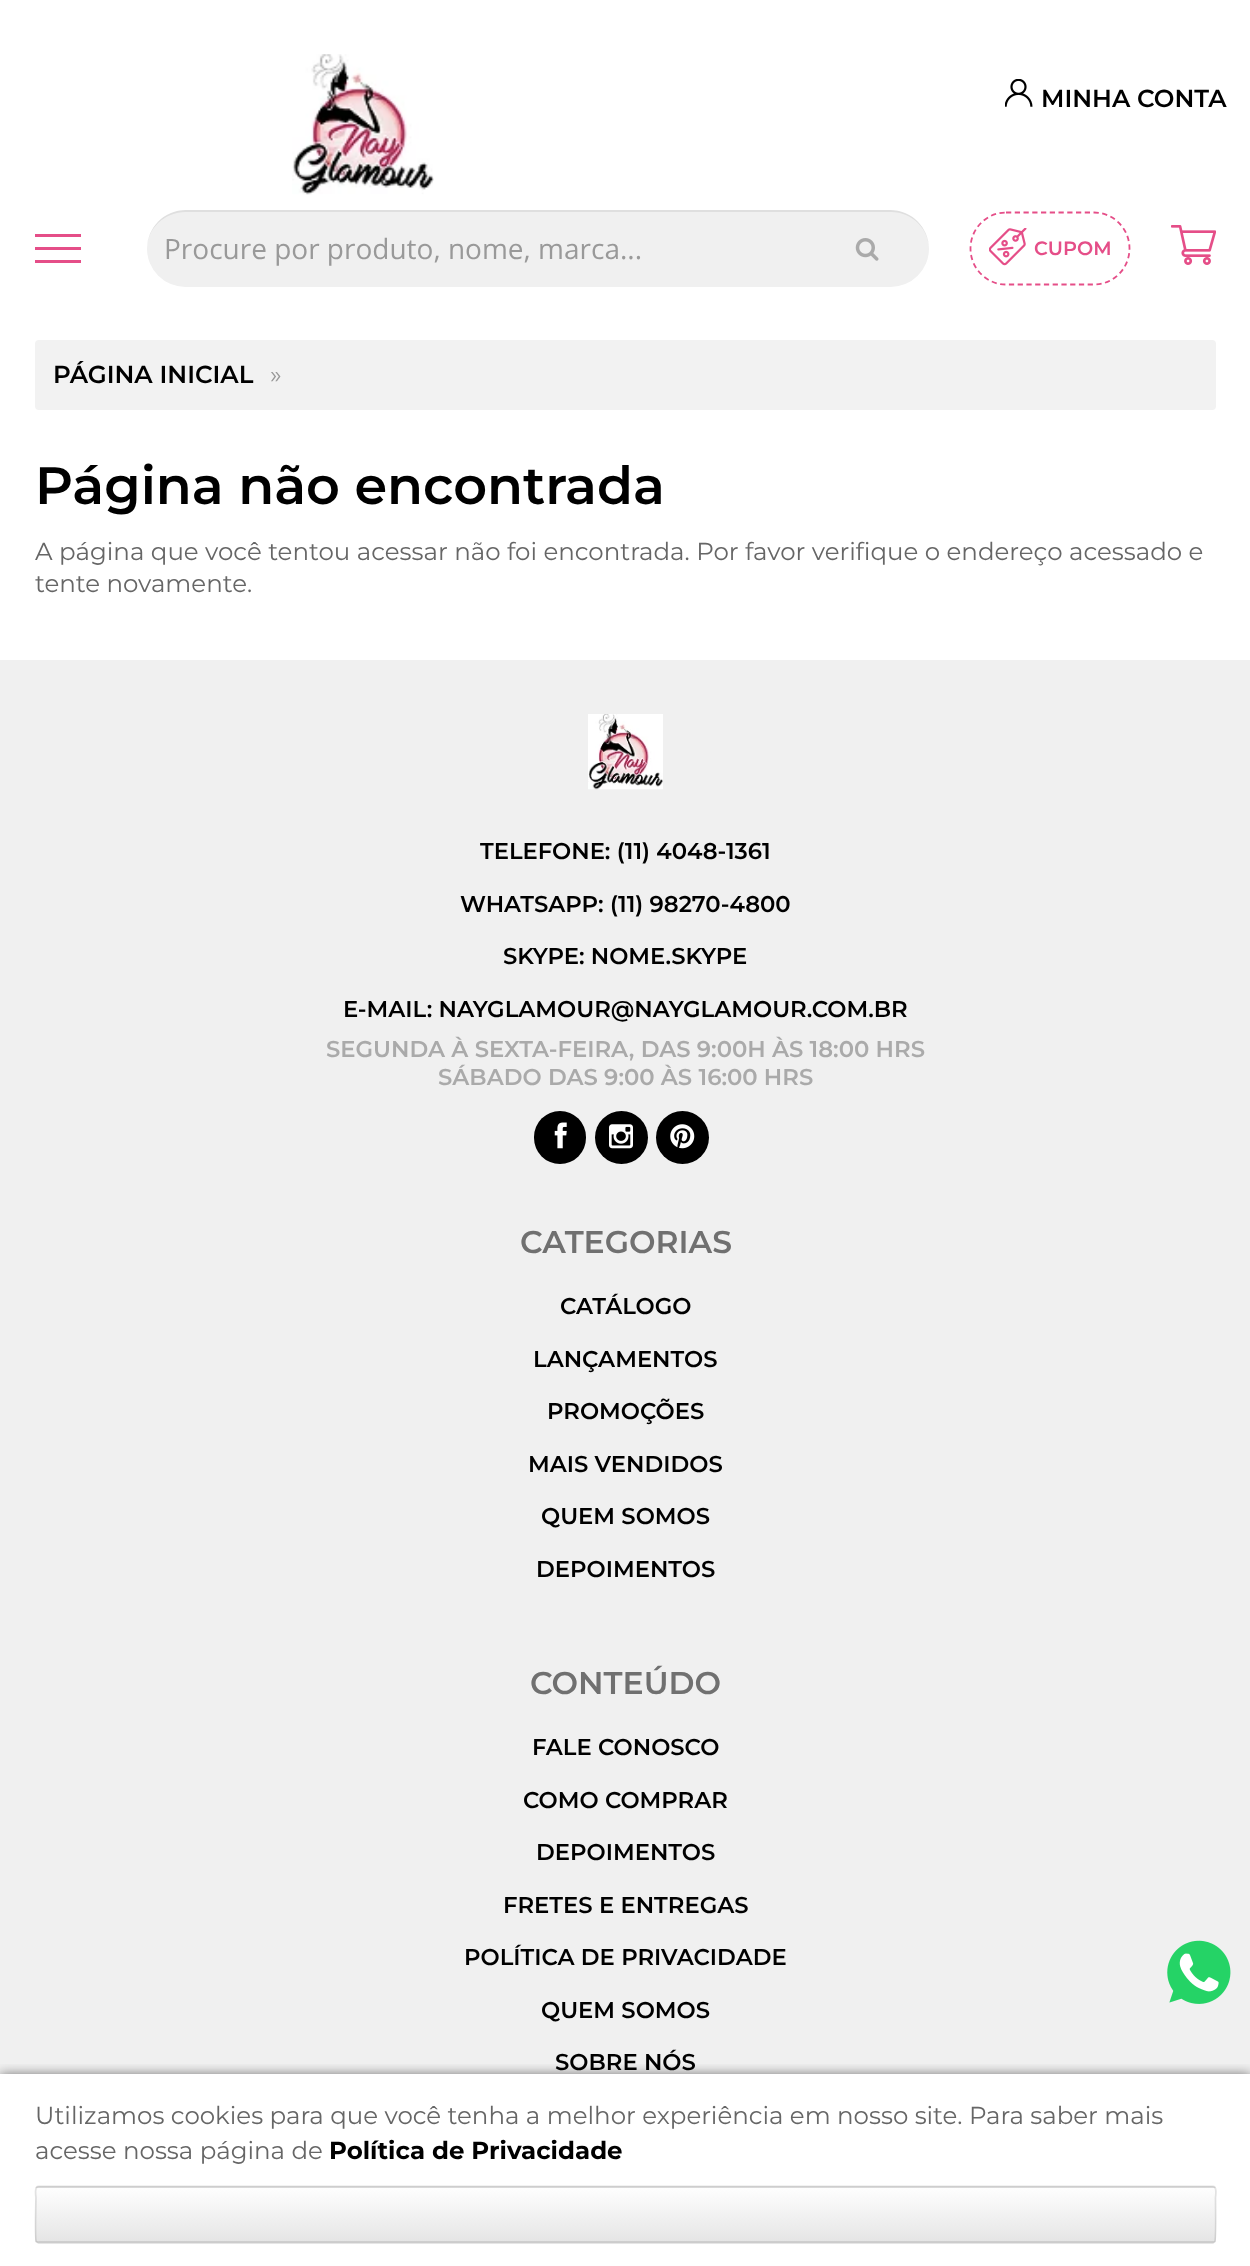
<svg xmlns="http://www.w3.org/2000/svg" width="1250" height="2266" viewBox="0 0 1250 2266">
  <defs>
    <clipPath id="clip1"><rect x="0" y="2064" width="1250" height="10"/></clipPath>
    <clipPath id="clip2"><rect x="35" y="2186" width="1181" height="58" rx="4"/></clipPath>
    <linearGradient id="g1" gradientUnits="userSpaceOnUse" x1="626" y1="2133" x2="626" y2="2188"><stop offset="0" stop-color="rgb(254,254,254)"/><stop offset="1" stop-color="rgb(229,229,229)"/></linearGradient>
    <linearGradient id="g2" gradientUnits="userSpaceOnUse" x1="626" y1="2188" x2="626" y2="2242"><stop offset="0" stop-color="rgb(254,254,254)"/><stop offset="1" stop-color="rgb(229,229,229)"/></linearGradient>
  </defs>
  <rect width="100%" height="100%" fill="rgb(255,255,255)"/>
  <image x="292" y="54" width="142" height="141" href="pic1.png"/>
  <image x="1005" y="79" width="28" height="28" href="pic2.png"/>
  <text x="1041" y="107" font-family="Montserrat" font-size="24.5" font-weight="600" fill="rgb(0,0,0)">MINHA CONTA</text>
  <rect x="35" y="234" width="46" height="3" fill="rgb(229,78,136)"/>
  <rect x="35" y="247" width="46" height="3" fill="rgb(229,78,136)"/>
  <rect x="35" y="260" width="46" height="3" fill="rgb(229,78,136)"/>
  <rect x="147" y="210" width="782" height="77" rx="38.5" fill="rgb(240,240,240)"/>
  <path d="M186 212H891C912 212 929 229 929 249C929 228 912 210 890 210H186C164 210 147 228 147 249C147 229 164 212 186 212Z" fill="rgba(0,0,0,0.07)"/>
  <text x="164" y="259" font-family="Open Sans" font-size="28" fill="rgb(153,153,153)">Procure por produto, nome, marca...</text>
  <image x="855" y="238" width="24" height="23" href="pic3.png"/>
  <path d="M1006 212.5H1094C1113.5 212.5 1129.5 228.5 1129.5 248.5C1129.5 268.5 1113.5 284.5 1094 284.5H1006C986.5 284.5 970.5 268.5 970.5 248.5C970.5 228.5 986.5 212.5 1006 212.5Z" fill="none" stroke="rgb(229,78,136)" stroke-width="1.8" stroke-dasharray="5.25 3.5"/>
  <image x="989" y="228" width="38" height="38" href="pic4.png"/>
  <text x="1034" y="255" font-family="Montserrat" font-size="19.25" font-weight="600" fill="rgb(229,78,136)">CUPOM</text>
  <image x="1171" y="225" width="45" height="40" href="pic5.png"/>
  <rect x="35" y="340" width="1181" height="70" rx="4" fill="rgb(242,242,242)"/>
  <text x="53" y="383" font-family="Montserrat" font-size="24.5" font-weight="600" fill="rgb(0,0,0)">PÁGINA INICIAL</text>
  <text x="270" y="383" font-family="Montserrat" font-size="24.5" fill="rgb(153,153,153)">»</text>
  <text x="35" y="504" font-family="Montserrat" font-size="52.5" font-weight="600" fill="rgb(0,0,0)">Página não encontrada</text>
  <g font-family="Montserrat" font-size="24.5" fill="rgb(102,102,102)">
    <text>
      <tspan x="35" y="560">A página que você tentou acessar não foi encontrada. Por favor verifique o endereço acessado e</tspan>
      <tspan x="35" y="592">tente novamente.</tspan>
    </text>
  </g>
  <rect x="0" y="660" width="1250" height="1414" fill="rgb(240,240,240)"/>
  <image x="588" y="714" width="75" height="76" href="pic6.png"/>
  <g font-family="Montserrat" font-size="22.75" font-weight="600" fill="rgb(0,0,0)">
    <text x="480" y="859">TELEFONE: (11) 4048-1361</text>
    <text x="460" y="912">WHATSAPP: (11) 98270-4800</text>
    <text x="503" y="964">SKYPE: NOME.SKYPE</text>
    <text x="343" y="1017">E-MAIL: NAYGLAMOUR@NAYGLAMOUR.COM.BR</text>
  </g>
  <g font-family="Montserrat" font-size="22.75" font-weight="600" fill="rgb(170,170,170)">
    <text x="326" y="1057">SEGUNDA À SEXTA-FEIRA, DAS 9:00H ÀS 18:00 HRS</text>
    <text x="438" y="1085">SÁBADO DAS 9:00 ÀS 16:00 HRS</text>
  </g>
  <rect x="534" y="1111" width="52" height="53" rx="26" fill="rgb(0,0,0)"/>
  <image x="554" y="1122" width="13" height="27" href="pic7.png"/>
  <circle cx="621.5" cy="1137.5" r="26.5" fill="rgb(0,0,0)"/>
  <image x="609" y="1124" width="24" height="25" href="pic8.png"/>
  <circle cx="682.5" cy="1137.5" r="26.5" fill="rgb(0,0,0)"/>
  <image x="670" y="1124" width="25" height="25" href="pic9.png"/>
  <text x="520" y="1253" font-family="Montserrat" font-size="31.5" font-weight="600" fill="rgb(112,112,112)">CATEGORIAS</text>
  <g font-family="Montserrat" font-size="22.75" font-weight="600" fill="rgb(0,0,0)">
    <text x="560" y="1314">CATÁLOGO</text>
    <text x="533" y="1367">LANÇAMENTOS</text>
    <text x="547" y="1419">PROMOÇÕES</text>
    <text x="528" y="1472">MAIS VENDIDOS</text>
    <text x="541" y="1524">QUEM SOMOS</text>
    <text x="536" y="1577">DEPOIMENTOS</text>
  </g>
  <text x="530" y="1694" font-family="Montserrat" font-size="31.5" font-weight="600" fill="rgb(112,112,112)">CONTEÚDO</text>
  <g font-family="Montserrat" font-size="22.75" font-weight="600" fill="rgb(0,0,0)">
    <text x="532" y="1755">FALE CONOSCO</text>
    <text x="523" y="1808">COMO COMPRAR</text>
    <text x="536" y="1860">DEPOIMENTOS</text>
    <text x="503" y="1913">FRETES E ENTREGAS</text>
    <text x="464" y="1965">POLÍTICA DE PRIVACIDADE</text>
    <text x="541" y="2018">QUEM SOMOS</text>
    <text x="555" y="2070">SOBRE NÓS</text>
  </g>
  <image x="1167" y="1940" width="64" height="64" href="pic10.png"/>
  <g clip-path="url(#clip1)">
    <rect x="0" y="2074" width="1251" height="192" fill="rgba(0,0,0,0.5)" filter="blur(6px)"/>
  </g>
  <g font-family="Montserrat" font-size="24.5" fill="rgb(102,102,102)">
    <text>
      <tspan x="35" y="2124">Utilizamos cookies para que você tenha a melhor experiência em nosso site. Para saber mais</tspan>
      <tspan x="35" y="2159">acesse nossa página de</tspan>
    </text>
  </g>
  <text x="329" y="2159" font-family="Montserrat" font-size="24.5" font-weight="bold" fill="rgb(0,0,0)">Política de Privacidade</text>
  <g clip-path="url(#clip2)">
    <rect x="35" y="2186" width="1181" height="2" fill="url(#g1)"/>
    <rect x="35" y="2188" width="1181" height="54" fill="url(#g2)"/>
  </g>
  <path d="M1214.5 2242L1213 2242.5H38.5L36.5 2242" fill="none" stroke="rgba(0,0,0,0.2)" stroke-width="1.8"/>
  <path d="M36.5 2242C34.5 2240 36 2203 36 2197.5C36 2197 34 2186.5 38.5 2186.5H1213C1217.5 2186.5 1215.5 2197 1215.5 2197.5C1215.5 2203 1216.5 2240 1214.5 2242" fill="none" stroke="rgba(0,0,0,0.1)" stroke-width="1.8"/>
</svg>
